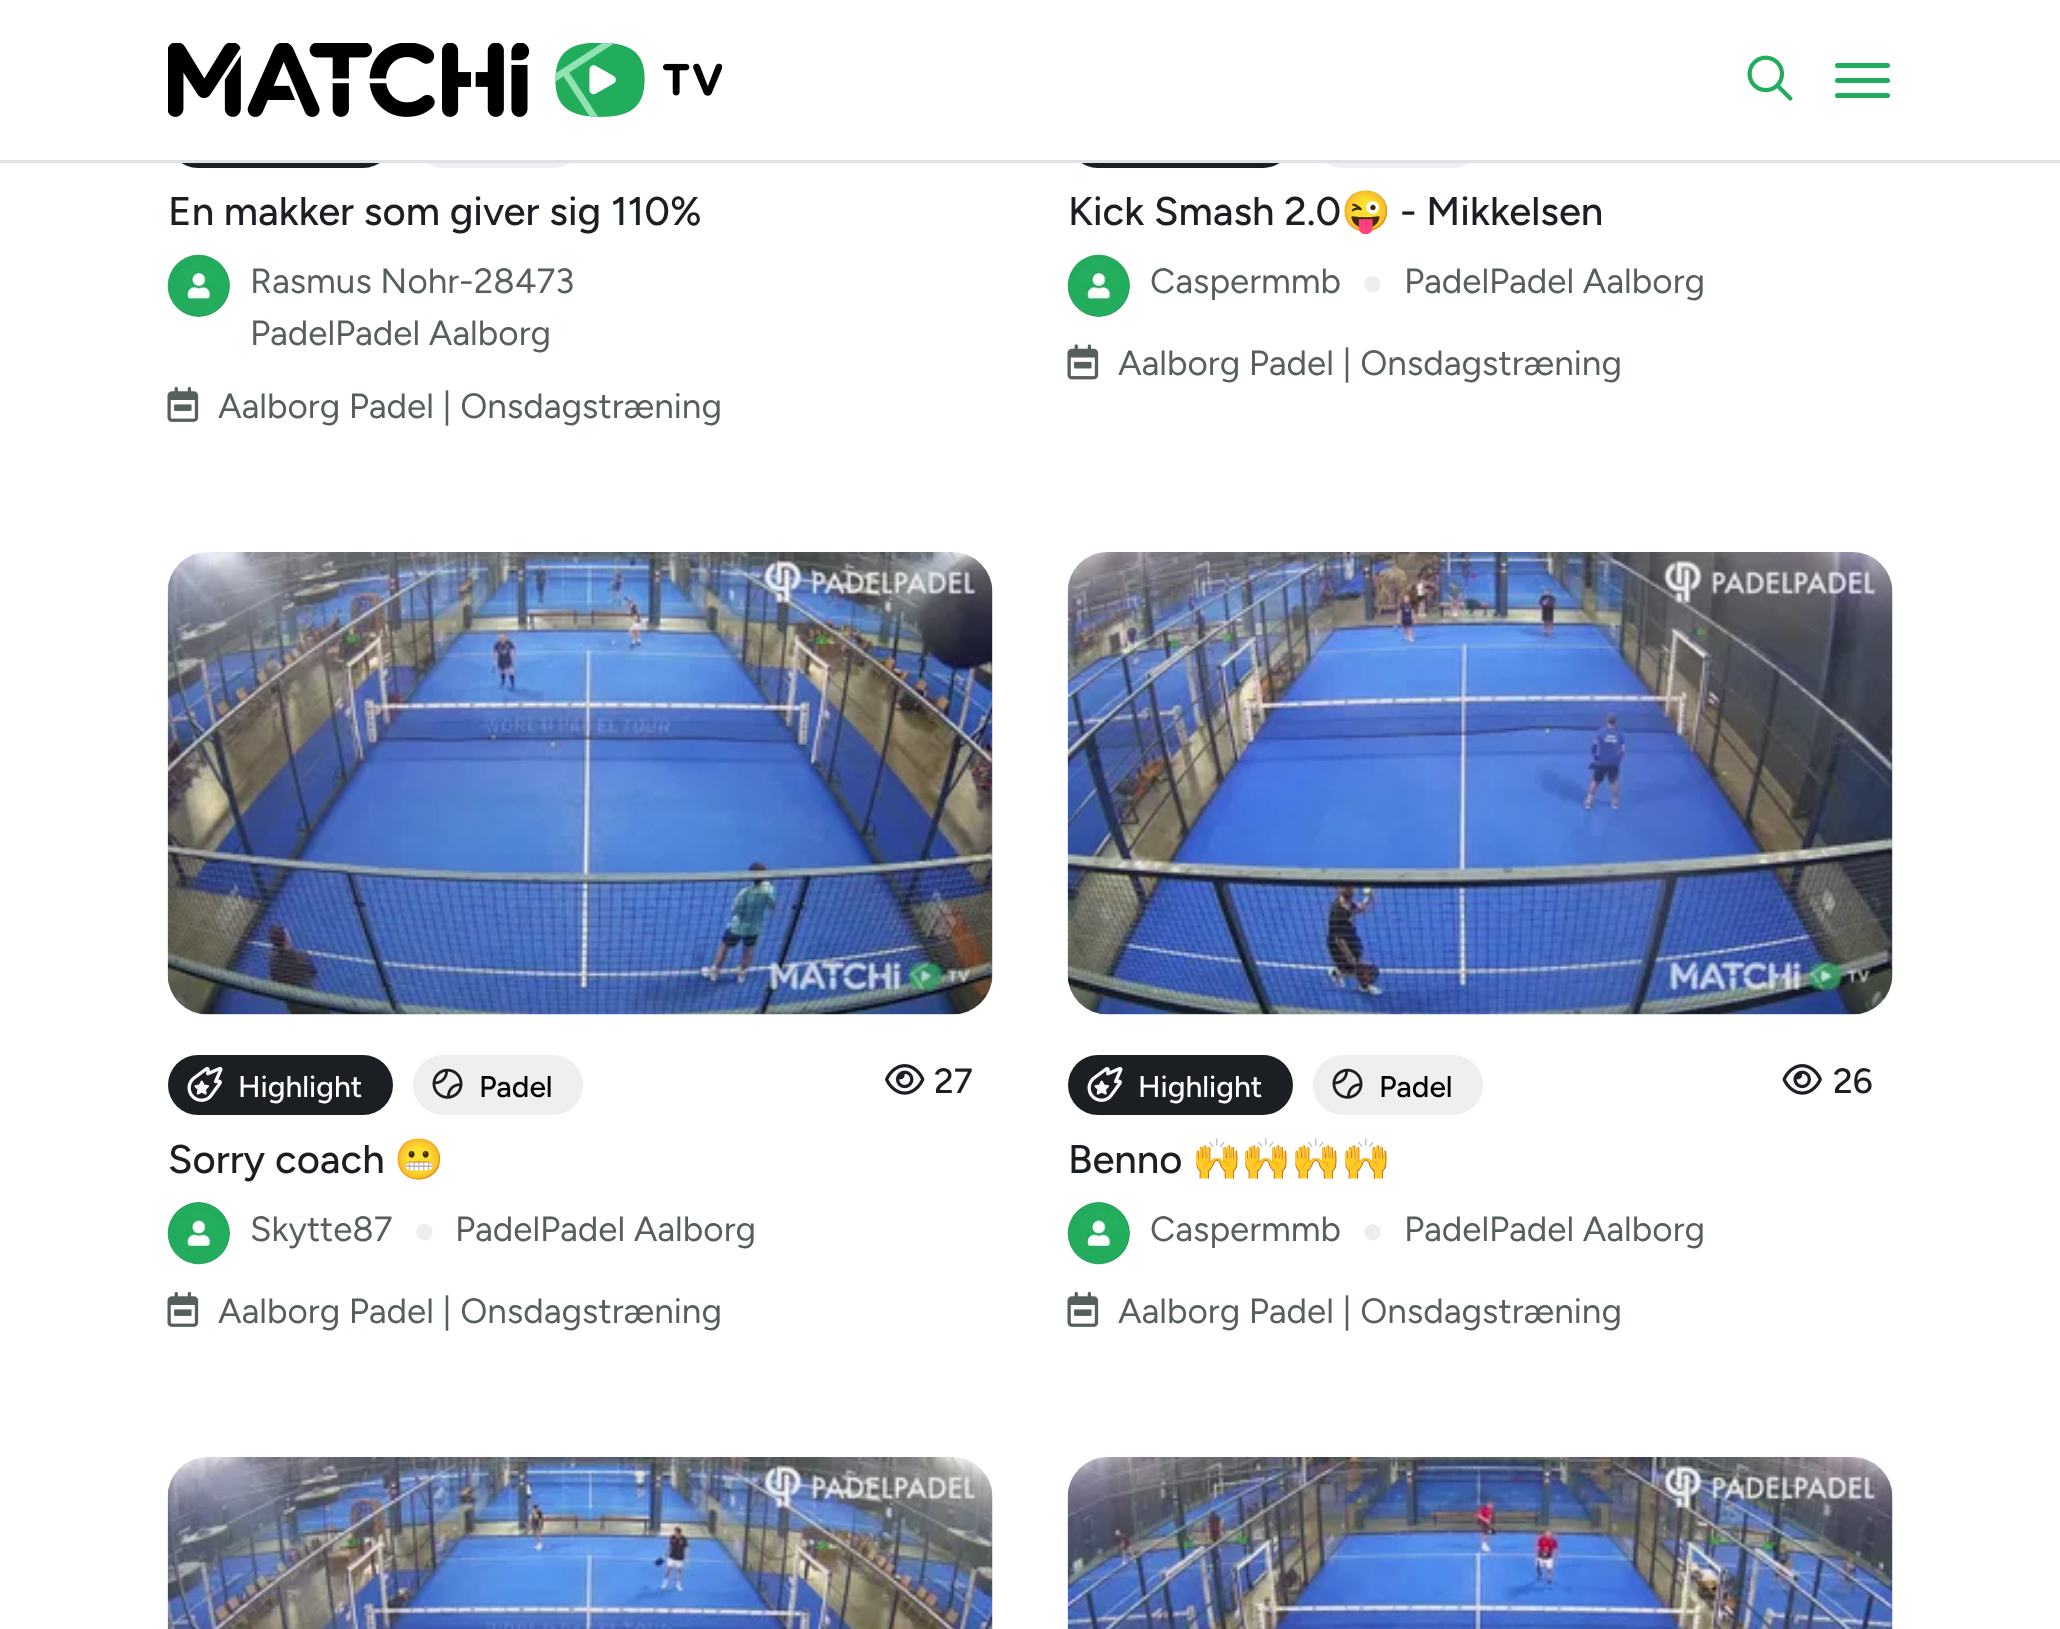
<svg xmlns="http://www.w3.org/2000/svg" width="2060" height="1629" viewBox="0 0 2060 1629">
  <rect width="100%" height="100%" fill="rgb(255,255,255)"/>
  <rect x="168" y="108" width="225" height="60" rx="30" fill="rgb(27,31,36)"/>
  <rect x="413" y="108" width="170" height="60" rx="30" fill="rgb(239,239,239)"/>
  <rect x="1068" y="108" width="225" height="60" rx="30" fill="rgb(27,31,36)"/>
  <rect x="1313" y="108" width="170" height="60" rx="30" fill="rgb(239,239,239)"/>
  <rect x="168" y="108" width="1315" height="52" fill="rgb(255,255,255)"/>
  <rect x="0" y="160" width="2060" height="3" fill="rgb(222,226,230)"/>
  <image x="168" y="43" width="554" height="74" href="pic1.png"/>
  <image x="1747" y="55" width="46" height="46" href="pic2.png"/>
  <rect x="1835" y="63" width="55" height="5" rx="2.5" fill="rgb(34,173,92)"/>
  <rect x="1835" y="78" width="55" height="5" rx="2.5" fill="rgb(34,173,92)"/>
  <rect x="1835" y="93" width="55" height="5" rx="2.5" fill="rgb(34,173,92)"/>
  <text x="168" y="225" font-family="Figtree" font-size="40" font-weight="500" fill="rgb(27,31,36)">En makker som giver sig 110%</text>
  <image x="167" y="254" width="63" height="63" href="pic3.png"/>
  <g font-family="Figtree" font-size="35" fill="rgb(86,95,91)">
    <text>
      <tspan x="250" y="293">Rasmus Nohr-28473</tspan>
      <tspan x="250" y="345">PadelPadel Aalborg</tspan>
    </text>
  </g>
  <image x="167" y="386" width="32" height="36" href="pic4.png"/>
  <text x="218" y="418" font-family="Figtree" font-size="35" fill="rgb(86,95,91)">Aalborg Padel | Onsdagstræning</text>
  <text x="1068" y="225" font-family="Figtree" font-size="40" font-weight="500" fill="rgb(27,31,36)">Kick Smash 2.0</text>
  <text x="1341" y="225" font-family="Noto Color Emoji" font-size="40" fill="rgb(27,31,36)">😜</text>
  <text x="1400" y="225" font-family="Figtree" font-size="40" font-weight="500" fill="rgb(27,31,36)">- Mikkelsen</text>
  <image x="1067" y="254" width="63" height="63" href="pic3.png"/>
  <text x="1150" y="293" font-family="Figtree" font-size="35" fill="rgb(86,95,91)">Caspermmb</text>
  <text x="1361" y="295" font-family="Liberation Sans" font-size="38" fill="rgb(236,239,237)">●</text>
  <text x="1404" y="293" font-family="Figtree" font-size="35" fill="rgb(86,95,91)">PadelPadel Aalborg</text>
  <image x="1067" y="344" width="32" height="36" href="pic5.png"/>
  <text x="1118" y="375" font-family="Figtree" font-size="35" fill="rgb(86,95,91)">Aalborg Padel | Onsdagstræning</text>
  <rect x="168" y="553" width="825" height="462" rx="40" fill="rgb(236,239,237)"/>
  <image x="167" y="552" width="826" height="463" href="pic6.png"/>
  <rect x="168" y="1055" width="225" height="60" rx="30" fill="rgb(27,31,36)"/>
  <image x="187" y="1066" width="36" height="36" href="pic7.png"/>
  <text x="238" y="1097" font-family="Figtree" font-size="30" font-weight="500" fill="rgb(255,255,255)">Highlight</text>
  <rect x="413" y="1055" width="170" height="60" rx="30" fill="rgb(239,239,239)"/>
  <image x="432" y="1068" width="31" height="31" href="pic8.png"/>
  <text x="479" y="1097" font-family="Figtree" font-size="30" font-weight="500" fill="rgb(0,0,0)">Padel</text>
  <image x="885" y="1064" width="40" height="31" href="pic9.png"/>
  <text x="934" y="1093" font-family="Figtree" font-size="35" font-weight="500" fill="rgb(27,31,36)">27</text>
  <text x="168" y="1173" font-family="Figtree" font-size="40" font-weight="500" fill="rgb(27,31,36)">Sorry coach</text>
  <text x="394" y="1173" font-family="Noto Color Emoji" font-size="40" fill="rgb(27,31,36)">😬</text>
  <image x="167" y="1202" width="63" height="63" href="pic10.png"/>
  <text x="250" y="1241" font-family="Figtree" font-size="35" fill="rgb(86,95,91)">Skytte87</text>
  <text x="413" y="1243" font-family="Liberation Sans" font-size="38" fill="rgb(236,239,237)">●</text>
  <text x="455" y="1241" font-family="Figtree" font-size="35" fill="rgb(86,95,91)">PadelPadel Aalborg</text>
  <image x="167" y="1291" width="32" height="36" href="pic4.png"/>
  <text x="218" y="1323" font-family="Figtree" font-size="35" fill="rgb(86,95,91)">Aalborg Padel | Onsdagstræning</text>
  <rect x="1068" y="553" width="825" height="462" rx="40" fill="rgb(236,239,237)"/>
  <image x="1067" y="552" width="826" height="463" href="pic11.png"/>
  <rect x="1068" y="1055" width="225" height="60" rx="30" fill="rgb(27,31,36)"/>
  <image x="1087" y="1066" width="36" height="36" href="pic7.png"/>
  <text x="1138" y="1097" font-family="Figtree" font-size="30" font-weight="500" fill="rgb(255,255,255)">Highlight</text>
  <rect x="1313" y="1055" width="170" height="60" rx="30" fill="rgb(239,239,239)"/>
  <image x="1332" y="1068" width="31" height="31" href="pic8.png"/>
  <text x="1379" y="1097" font-family="Figtree" font-size="30" font-weight="500" fill="rgb(0,0,0)">Padel</text>
  <image x="1782" y="1064" width="40" height="31" href="pic12.png"/>
  <text x="1833" y="1093" font-family="Figtree" font-size="35" font-weight="500" fill="rgb(27,31,36)">26</text>
  <text x="1068" y="1173" font-family="Figtree" font-size="40" font-weight="500" fill="rgb(27,31,36)">Benno</text>
  <text x="1192" y="1173" font-family="Noto Color Emoji" font-size="40" fill="rgb(27,31,36)">🙌🙌🙌🙌</text>
  <image x="1067" y="1202" width="63" height="63" href="pic10.png"/>
  <text x="1150" y="1241" font-family="Figtree" font-size="35" fill="rgb(86,95,91)">Caspermmb</text>
  <text x="1361" y="1243" font-family="Liberation Sans" font-size="38" fill="rgb(236,239,237)">●</text>
  <text x="1404" y="1241" font-family="Figtree" font-size="35" fill="rgb(86,95,91)">PadelPadel Aalborg</text>
  <image x="1067" y="1291" width="32" height="36" href="pic4.png"/>
  <text x="1118" y="1323" font-family="Figtree" font-size="35" fill="rgb(86,95,91)">Aalborg Padel | Onsdagstræning</text>
  <rect x="168" y="1458" width="825" height="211" rx="40" fill="rgb(236,239,237)"/>
  <image x="167" y="1457" width="826" height="172" href="pic13.png"/>
  <rect x="1068" y="1458" width="825" height="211" rx="40" fill="rgb(236,239,237)"/>
  <image x="1067" y="1457" width="826" height="172" href="pic14.png"/>
</svg>
